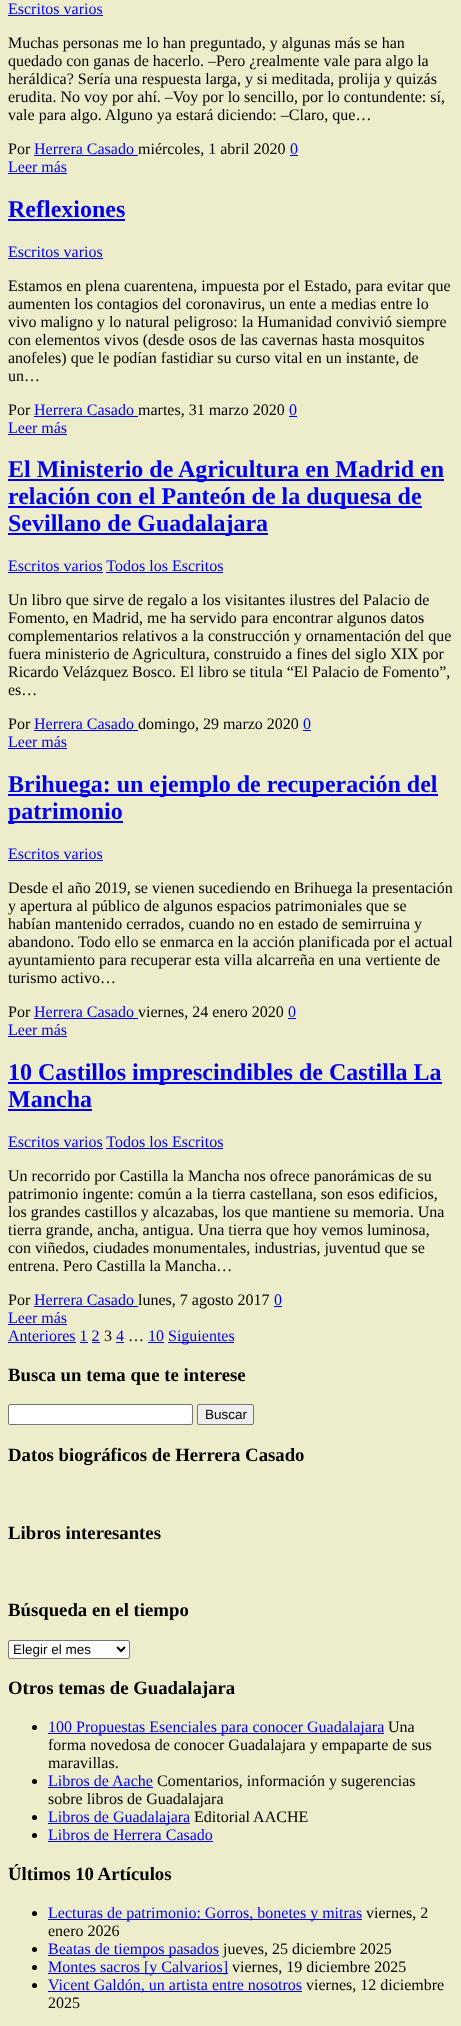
<svg xmlns="http://www.w3.org/2000/svg" width="461" height="2026" viewBox="0 0 461 2026">
  <rect width="100%" height="100%" fill="rgb(237,237,203)"/>
  <text x="8" y="14" font-family="Liberation Serif" font-size="16" fill="rgb(0,0,238)">Escritos varios</text>
  <rect x="8" y="15" width="95" height="1" fill="rgb(0,0,238)"/>
  <g font-family="Liberation Serif" font-size="16" fill="rgb(0,0,0)">
    <text>
      <tspan x="8" y="48">Muchas personas me lo han preguntado, y algunas más se han</tspan>
      <tspan x="8" y="66">quedado con ganas de hacerlo. –Pero ¿realmente vale para algo la</tspan>
      <tspan x="8" y="84">heráldica? Sería una respuesta larga, y si meditada, prolija y quizás</tspan>
      <tspan x="8" y="102">erudita. No voy por ahí. –Voy por lo sencillo, por lo contundente: sí,</tspan>
      <tspan x="8" y="120">vale para algo. Alguno ya estará diciendo: –Claro, que…</tspan>
    </text>
    <text x="8" y="154">Por</text>
  </g>
  <text x="34" y="154" font-family="Liberation Serif" font-size="16" fill="rgb(0,0,238)">Herrera Casado</text>
  <rect x="34" y="155" width="104" height="1" fill="rgb(0,0,238)"/>
  <text x="138" y="154" font-family="Liberation Serif" font-size="16" fill="rgb(0,0,0)">miércoles, 1 abril 2020</text>
  <text x="290" y="154" font-family="Liberation Serif" font-size="16" fill="rgb(0,0,238)">0</text>
  <rect x="290" y="155" width="8" height="1" fill="rgb(0,0,238)"/>
  <text x="8" y="172" font-family="Liberation Serif" font-size="16" fill="rgb(0,0,238)">Leer más</text>
  <rect x="8" y="173" width="59" height="1" fill="rgb(0,0,238)"/>
  <text x="8" y="217" font-family="Liberation Serif" font-size="24" font-weight="bold" fill="rgb(0,0,238)">Reflexiones</text>
  <rect x="8" y="219" width="117" height="2" fill="rgb(0,0,238)"/>
  <text x="8" y="257" font-family="Liberation Serif" font-size="16" fill="rgb(0,0,238)">Escritos varios</text>
  <rect x="8" y="258" width="95" height="1" fill="rgb(0,0,238)"/>
  <g font-family="Liberation Serif" font-size="16" fill="rgb(0,0,0)">
    <text>
      <tspan x="8" y="291">Estamos en plena cuarentena, impuesta por el Estado, para evitar que</tspan>
      <tspan x="8" y="309">aumenten los contagios del coronavirus, un ente a medias entre lo</tspan>
      <tspan x="8" y="327">vivo maligno y lo natural peligroso: la Humanidad convivió siempre</tspan>
      <tspan x="8" y="345">con elementos vivos (desde osos de las cavernas hasta mosquitos</tspan>
      <tspan x="8" y="363">anofeles) que le podían fastidiar su curso vital en un instante, de</tspan>
      <tspan x="8" y="381">un…</tspan>
    </text>
    <text x="8" y="415">Por</text>
  </g>
  <text x="34" y="415" font-family="Liberation Serif" font-size="16" fill="rgb(0,0,238)">Herrera Casado</text>
  <rect x="34" y="416" width="104" height="1" fill="rgb(0,0,238)"/>
  <text x="138" y="415" font-family="Liberation Serif" font-size="16" fill="rgb(0,0,0)">martes, 31 marzo 2020</text>
  <text x="289" y="415" font-family="Liberation Serif" font-size="16" fill="rgb(0,0,238)">0</text>
  <rect x="289" y="416" width="8" height="1" fill="rgb(0,0,238)"/>
  <text x="8" y="433" font-family="Liberation Serif" font-size="16" fill="rgb(0,0,238)">Leer más</text>
  <rect x="8" y="434" width="59" height="1" fill="rgb(0,0,238)"/>
  <rect x="8" y="479" width="436" height="2" fill="rgb(0,0,238)"/>
  <text x="8" y="477" font-family="Liberation Serif" font-size="24" font-weight="bold" fill="rgb(0,0,238)">El Ministerio de Agricultura en Madrid en</text>
  <rect x="8" y="506" width="414" height="2" fill="rgb(0,0,238)"/>
  <text x="8" y="504" font-family="Liberation Serif" font-size="24" font-weight="bold" fill="rgb(0,0,238)">relación con el Panteón de la duquesa de</text>
  <rect x="8" y="533" width="260" height="2" fill="rgb(0,0,238)"/>
  <text x="8" y="531" font-family="Liberation Serif" font-size="24" font-weight="bold" fill="rgb(0,0,238)">Sevillano de Guadalajara</text>
  <text x="8" y="571" font-family="Liberation Serif" font-size="16" fill="rgb(0,0,238)">Escritos varios Todos los Escritos</text>
  <rect x="8" y="572" width="95" height="1" fill="rgb(0,0,238)"/>
  <rect x="106" y="572" width="117" height="1" fill="rgb(0,0,238)"/>
  <g font-family="Liberation Serif" font-size="16" fill="rgb(0,0,0)">
    <text>
      <tspan x="8" y="605">Un libro que sirve de regalo a los visitantes ilustres del Palacio de</tspan>
      <tspan x="8" y="623">Fomento, en Madrid, me ha servido para encontrar algunos datos</tspan>
      <tspan x="8" y="641">complementarios relativos a la construcción y ornamentación del que</tspan>
      <tspan x="8" y="659">fuera ministerio de Agricultura, construido a fines del siglo XIX por</tspan>
      <tspan x="8" y="677">Ricardo Velázquez Bosco. El libro se titula “El Palacio de Fomento”,</tspan>
      <tspan x="8" y="695">es…</tspan>
    </text>
    <text x="8" y="729">Por</text>
  </g>
  <text x="34" y="729" font-family="Liberation Serif" font-size="16" fill="rgb(0,0,238)">Herrera Casado</text>
  <rect x="34" y="730" width="104" height="1" fill="rgb(0,0,238)"/>
  <text x="138" y="729" font-family="Liberation Serif" font-size="16" fill="rgb(0,0,0)">domingo, 29 marzo 2020</text>
  <text x="303" y="729" font-family="Liberation Serif" font-size="16" fill="rgb(0,0,238)">0</text>
  <rect x="303" y="730" width="8" height="1" fill="rgb(0,0,238)"/>
  <text x="8" y="747" font-family="Liberation Serif" font-size="16" fill="rgb(0,0,238)">Leer más</text>
  <rect x="8" y="748" width="59" height="1" fill="rgb(0,0,238)"/>
  <rect x="8" y="794" width="430" height="2" fill="rgb(0,0,238)"/>
  <text x="8" y="792" font-family="Liberation Serif" font-size="24" font-weight="bold" fill="rgb(0,0,238)">Brihuega: un ejemplo de recuperación del</text>
  <rect x="8" y="821" width="115" height="2" fill="rgb(0,0,238)"/>
  <text x="8" y="819" font-family="Liberation Serif" font-size="24" font-weight="bold" fill="rgb(0,0,238)">patrimonio</text>
  <text x="8" y="859" font-family="Liberation Serif" font-size="16" fill="rgb(0,0,238)">Escritos varios</text>
  <rect x="8" y="860" width="95" height="1" fill="rgb(0,0,238)"/>
  <g font-family="Liberation Serif" font-size="16" fill="rgb(0,0,0)">
    <text>
      <tspan x="8" y="893">Desde el año 2019, se vienen sucediendo en Brihuega la presentación</tspan>
      <tspan x="8" y="911">y apertura al público de algunos espacios patrimoniales que se</tspan>
      <tspan x="8" y="929">habían mantenido cerrados, cuando no en estado de semirruina y</tspan>
      <tspan x="8" y="947">abandono. Todo ello se enmarca en la acción planificada por el actual</tspan>
      <tspan x="8" y="965">ayuntamiento para recuperar esta villa alcarreña en una vertiente de</tspan>
      <tspan x="8" y="983">turismo activo…</tspan>
    </text>
    <text x="8" y="1017">Por</text>
  </g>
  <text x="34" y="1017" font-family="Liberation Serif" font-size="16" fill="rgb(0,0,238)">Herrera Casado</text>
  <rect x="34" y="1018" width="104" height="1" fill="rgb(0,0,238)"/>
  <text x="138" y="1017" font-family="Liberation Serif" font-size="16" fill="rgb(0,0,0)">viernes, 24 enero 2020</text>
  <text x="288" y="1017" font-family="Liberation Serif" font-size="16" fill="rgb(0,0,238)">0</text>
  <rect x="288" y="1018" width="8" height="1" fill="rgb(0,0,238)"/>
  <text x="8" y="1035" font-family="Liberation Serif" font-size="16" fill="rgb(0,0,238)">Leer más</text>
  <rect x="8" y="1036" width="59" height="1" fill="rgb(0,0,238)"/>
  <rect x="8" y="1082" width="434" height="2" fill="rgb(0,0,238)"/>
  <g font-family="Liberation Serif" font-size="24" font-weight="bold" fill="rgb(0,0,238)">
    <text>
      <tspan x="8" y="1080">10 Castillos imprescindibles de Castilla La</tspan>
      <tspan x="8" y="1107">Mancha</tspan>
    </text>
  </g>
  <rect x="8" y="1109" width="84" height="2" fill="rgb(0,0,238)"/>
  <text x="8" y="1147" font-family="Liberation Serif" font-size="16" fill="rgb(0,0,238)">Escritos varios Todos los Escritos</text>
  <rect x="8" y="1148" width="95" height="1" fill="rgb(0,0,238)"/>
  <rect x="106" y="1148" width="117" height="1" fill="rgb(0,0,238)"/>
  <g font-family="Liberation Serif" font-size="16" fill="rgb(0,0,0)">
    <text>
      <tspan x="8" y="1181">Un recorrido por Castilla la Mancha nos ofrece panorámicas de su</tspan>
      <tspan x="8" y="1199">patrimonio ingente: común a la tierra castellana, son esos edificios,</tspan>
      <tspan x="8" y="1217">los grandes castillos y alcazabas, los que mantiene su memoria. Una</tspan>
      <tspan x="8" y="1235">tierra grande, ancha, antigua. Una tierra que hoy vemos luminosa,</tspan>
      <tspan x="8" y="1253">con viñedos, ciudades monumentales, industrias, juventud que se</tspan>
      <tspan x="8" y="1271">entrena. Pero Castilla la Mancha…</tspan>
    </text>
    <text x="8" y="1305">Por</text>
  </g>
  <text x="34" y="1305" font-family="Liberation Serif" font-size="16" fill="rgb(0,0,238)">Herrera Casado</text>
  <rect x="34" y="1306" width="104" height="1" fill="rgb(0,0,238)"/>
  <text x="138" y="1305" font-family="Liberation Serif" font-size="16" fill="rgb(0,0,0)">lunes, 7 agosto 2017</text>
  <text x="274" y="1305" font-family="Liberation Serif" font-size="16" fill="rgb(0,0,238)">0</text>
  <rect x="274" y="1306" width="8" height="1" fill="rgb(0,0,238)"/>
  <text x="8" y="1323" font-family="Liberation Serif" font-size="16" fill="rgb(0,0,238)">Leer más</text>
  <rect x="8" y="1324" width="59" height="1" fill="rgb(0,0,238)"/>
  <text x="8" y="1341" font-family="Liberation Serif" font-size="16" fill="rgb(0,0,238)">Anteriores 1 2</text>
  <rect x="8" y="1342" width="68" height="1" fill="rgb(0,0,238)"/>
  <text x="104" y="1341" font-family="Liberation Serif" font-size="16" fill="rgb(0,0,0)">3</text>
  <text x="116" y="1341" font-family="Liberation Serif" font-size="16" fill="rgb(0,0,238)">4</text>
  <rect x="116" y="1342" width="8" height="1" fill="rgb(0,0,238)"/>
  <text x="128" y="1341" font-family="Liberation Serif" font-size="16" fill="rgb(0,0,0)">…</text>
  <text x="148" y="1341" font-family="Liberation Serif" font-size="16" fill="rgb(0,0,238)">10</text>
  <rect x="148" y="1342" width="16" height="1" fill="rgb(0,0,238)"/>
  <rect x="168" y="1342" width="66" height="1" fill="rgb(0,0,238)"/>
  <text x="168" y="1341" font-family="Liberation Serif" font-size="16" fill="rgb(0,0,238)">Siguientes</text>
  <rect x="80" y="1342" width="8" height="1" fill="rgb(0,0,238)"/>
  <rect x="92" y="1342" width="8" height="1" fill="rgb(0,0,238)"/>
  <text x="8" y="1381" font-family="Liberation Serif" font-size="18.75" font-weight="bold" fill="rgb(0,0,0)">Busca un tema que te interese</text>
  <rect x="8.5" y="1404.5" width="184" height="20" rx="1.5" fill="rgb(255,255,255)" stroke="rgb(118,118,118)"/>
  <rect x="197.5" y="1404.5" width="56" height="20" rx="1.5" fill="rgb(239,239,239)" stroke="rgb(118,118,118)"/>
  <text x="205" y="1419" font-family="Liberation Sans" font-size="13.5" fill="rgb(0,0,0)">Buscar</text>
  <g font-family="Liberation Serif" font-size="18.75" font-weight="bold" fill="rgb(0,0,0)">
    <text x="8" y="1461">Datos biográficos de Herrera Casado</text>
    <text x="8" y="1539">Libros interesantes</text>
    <text x="8" y="1616">Búsqueda en el tiempo</text>
  </g>
  <rect x="8.5" y="1640.5" width="121" height="18" rx="1.5" fill="rgb(255,255,255)" stroke="rgb(118,118,118)"/>
  <path d="M117 1647L121 1651L125 1647" fill="none" stroke="rgb(0,0,0)" stroke-width="2"/>
  <text x="13" y="1654" font-family="Liberation Sans" font-size="13.5" fill="rgb(0,0,0)">Elegir el mes</text>
  <text x="8" y="1694" font-family="Liberation Serif" font-size="18.75" font-weight="bold" fill="rgb(0,0,0)">Otros temas de Guadalajara</text>
  <circle cx="34.5" cy="1727.5" r="2.5" fill="rgb(0,0,0)"/>
  <rect x="48" y="1733" width="336" height="1" fill="rgb(0,0,238)"/>
  <text x="48" y="1732" font-family="Liberation Serif" font-size="16" fill="rgb(0,0,238)">100 Propuestas Esenciales para conocer Guadalajara</text>
  <g font-family="Liberation Serif" font-size="16" fill="rgb(0,0,0)">
    <text x="388" y="1732">Una</text>
    <text>
      <tspan x="48" y="1750">forma novedosa de conocer Guadalajara y empaparte de sus</tspan>
      <tspan x="48" y="1768">maravillas.</tspan>
    </text>
  </g>
  <circle cx="34.5" cy="1781.5" r="2.5" fill="rgb(0,0,0)"/>
  <text x="48" y="1786" font-family="Liberation Serif" font-size="16" fill="rgb(0,0,238)">Libros de Aache</text>
  <rect x="48" y="1787" width="105" height="1" fill="rgb(0,0,238)"/>
  <g font-family="Liberation Serif" font-size="16" fill="rgb(0,0,0)">
    <text x="157" y="1786">Comentarios, información y sugerencias</text>
    <text x="48" y="1804">sobre libros de Guadalajara</text>
  </g>
  <circle cx="34.5" cy="1817.5" r="2.5" fill="rgb(0,0,0)"/>
  <rect x="48" y="1823" width="142" height="1" fill="rgb(0,0,238)"/>
  <text x="48" y="1822" font-family="Liberation Serif" font-size="16" fill="rgb(0,0,238)">Libros de Guadalajara</text>
  <text x="194" y="1822" font-family="Liberation Serif" font-size="16" fill="rgb(0,0,0)">Editorial AACHE</text>
  <circle cx="34.5" cy="1835.5" r="2.5" fill="rgb(0,0,0)"/>
  <text x="48" y="1840" font-family="Liberation Serif" font-size="16" fill="rgb(0,0,238)">Libros de Herrera Casado</text>
  <rect x="48" y="1841" width="165" height="1" fill="rgb(0,0,238)"/>
  <text x="8" y="1880" font-family="Liberation Serif" font-size="18.75" font-weight="bold" fill="rgb(0,0,0)">Últimos 10 Artículos</text>
  <circle cx="34.5" cy="1913.5" r="2.5" fill="rgb(0,0,0)"/>
  <rect x="48" y="1919" width="314" height="1" fill="rgb(0,0,238)"/>
  <text x="48" y="1918" font-family="Liberation Serif" font-size="16" fill="rgb(0,0,238)">Lecturas de patrimonio: Gorros, bonetes y mitras</text>
  <g font-family="Liberation Serif" font-size="16" fill="rgb(0,0,0)">
    <text x="366" y="1918">viernes, 2</text>
    <text x="48" y="1936">enero 2026</text>
  </g>
  <circle cx="34.5" cy="1949.5" r="2.5" fill="rgb(0,0,0)"/>
  <rect x="48" y="1955" width="171" height="1" fill="rgb(0,0,238)"/>
  <text x="48" y="1954" font-family="Liberation Serif" font-size="16" fill="rgb(0,0,238)">Beatas de tiempos pasados</text>
  <text x="223" y="1954" font-family="Liberation Serif" font-size="16" fill="rgb(0,0,0)">jueves, 25 diciembre 2025</text>
  <circle cx="34.5" cy="1967.5" r="2.5" fill="rgb(0,0,0)"/>
  <rect x="48" y="1973" width="180" height="1" fill="rgb(0,0,238)"/>
  <text x="48" y="1972" font-family="Liberation Serif" font-size="16" fill="rgb(0,0,238)">Montes sacros [y Calvarios]</text>
  <text x="232" y="1972" font-family="Liberation Serif" font-size="16" fill="rgb(0,0,0)">viernes, 19 diciembre 2025</text>
  <circle cx="34.5" cy="1985.5" r="2.5" fill="rgb(0,0,0)"/>
  <rect x="48" y="1991" width="254" height="1" fill="rgb(0,0,238)"/>
  <text x="48" y="1990" font-family="Liberation Serif" font-size="16" fill="rgb(0,0,238)">Vicent Galdón, un artista entre nosotros</text>
  <g font-family="Liberation Serif" font-size="16" fill="rgb(0,0,0)">
    <text x="306" y="1990">viernes, 12 diciembre</text>
    <text x="48" y="2008">2025</text>
  </g>
</svg>
